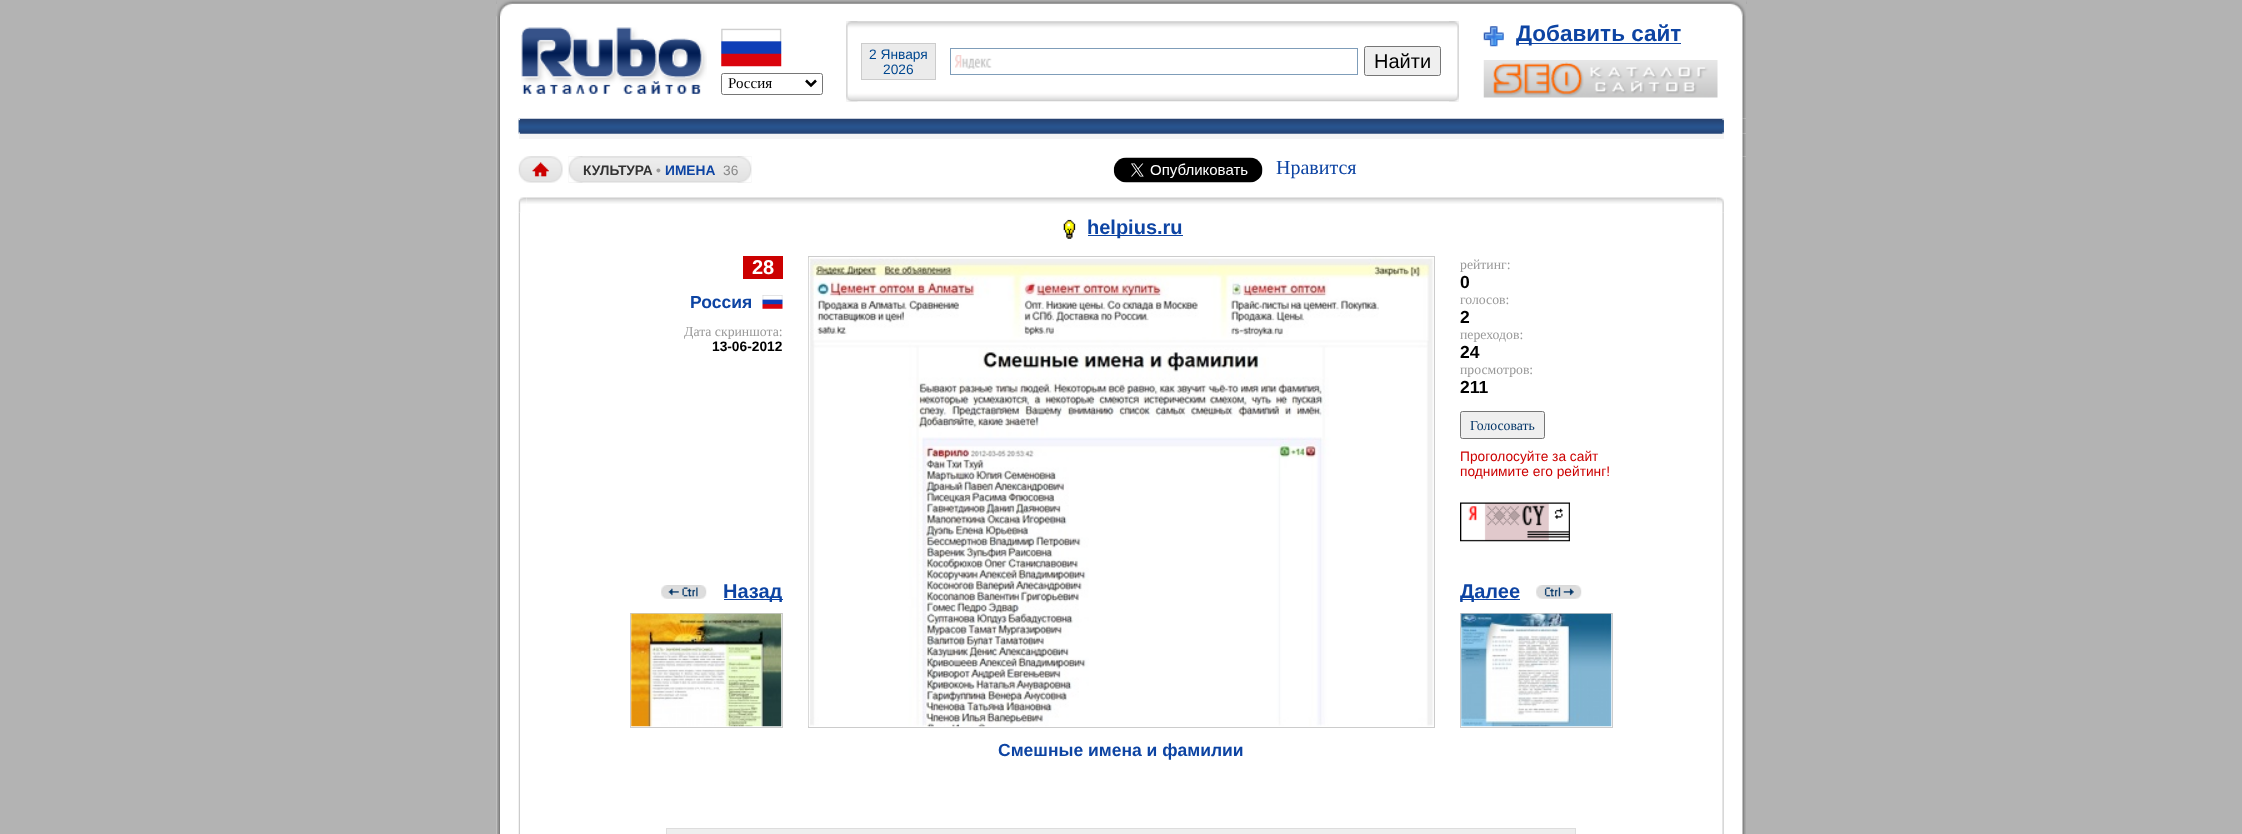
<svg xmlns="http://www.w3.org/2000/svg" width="2242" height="834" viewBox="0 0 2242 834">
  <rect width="100%" height="100%" fill="rgb(179,179,179)"/>
  <rect x="496" y="0" width="1250" height="834" fill="rgb(255,255,255)"/>
  <image x="496" y="0" width="4" height="834" href="pic1.png"/>
  <image x="1742" y="16" width="4" height="103" href="pic2.png"/>
  <image x="496" y="0" width="1251" height="4" href="pic3.png"/>
  <image x="496" y="0" width="16" height="17" href="pic4.png"/>
  <image x="1730" y="0" width="16" height="16" href="pic5.png"/>
  <image x="521" y="27" width="186" height="67" href="pic6.png"/>
  <image x="846" y="21" width="613" height="81" href="pic7.png"/>
  <image x="846" y="21" width="12" height="81" href="pic8.png"/>
  <rect x="862" y="44" width="73" height="35" fill="rgb(235,235,235)"/>
  <rect x="861" y="43" width="75" height="1" fill="rgb(204,204,204)"/>
  <rect x="935" y="43" width="1" height="37" fill="rgb(204,204,204)"/>
  <rect x="861" y="79" width="75" height="1" fill="rgb(204,204,204)"/>
  <rect x="861" y="43" width="1" height="37" fill="rgb(204,204,204)"/>
  <g font-family="Liberation Sans" font-size="13.75" fill="rgb(0,71,143)">
    <text x="869" y="59">2 Января</text>
    <text x="883" y="74">2026</text>
  </g>
  <image x="955" y="55" width="37" height="14" href="pic9.png"/>
  <rect x="950.5" y="48.5" width="407" height="26" fill="none" stroke="rgb(127,157,185)"/>
  <rect x="1364.5" y="46.5" width="76" height="29" rx="2" fill="rgb(239,239,239)" stroke="rgb(118,118,118)"/>
  <text x="1374" y="68" font-family="Liberation Sans" font-size="20" fill="rgb(0,0,0)">Найти</text>
  <image x="1449" y="21" width="10" height="81" href="pic10.png"/>
  <image x="1483" y="26" width="21" height="21" href="pic11.png"/>
  <rect x="1516" y="43" width="165" height="1" fill="rgb(13,68,163)"/>
  <text x="1516" y="41" font-family="Liberation Sans" font-size="22.5" font-weight="bold" fill="rgb(13,68,163)">Добавить сайт</text>
  <image x="1483" y="60" width="235" height="38" href="pic12.png"/>
  <image x="721" y="28" width="61" height="39" href="pic13.png"/>
  <rect x="721.5" y="73.5" width="101" height="21" rx="2" fill="none" stroke="rgb(118,118,118)"/>
  <path d="M806 80.5L811 85.5L816 80.5" fill="none" stroke="rgb(0,0,0)" stroke-width="2.5"/>
  <text x="728" y="88" font-family="Liberation Serif" font-size="15" fill="rgb(0,0,0)">Россия</text>
  <image x="1742" y="118" width="4" height="16" href="pic14.png"/>
  <image x="518" y="118" width="1206" height="16" href="pic15.png"/>
  <image x="518" y="118" width="2" height="16" href="pic16.png"/>
  <image x="1722" y="118" width="2" height="16" href="pic17.png"/>
  <image x="1742" y="133" width="4" height="24" href="pic18.png"/>
  <rect x="519" y="134" width="1205" height="5" fill="rgb(245,245,245)"/>
  <image x="1742" y="156" width="4" height="29" href="pic19.png"/>
  <image x="518" y="156" width="45" height="27" href="pic20.png"/>
  <image x="568" y="156" width="184" height="27" href="pic21.png"/>
  <image x="568" y="156" width="15" height="27" href="pic22.png"/>
  <text x="583" y="175" font-family="Liberation Sans" font-size="13.75" font-weight="bold" fill="rgb(51,51,51)">КУЛЬТУРА</text>
  <text x="656" y="175" font-family="Liberation Sans" font-size="13.75" font-weight="bold" fill="rgb(153,153,153)">•</text>
  <text x="665" y="175" font-family="Liberation Sans" font-size="13.75" font-weight="bold" fill="rgb(13,68,163)">ИМЕНА</text>
  <image x="737" y="156" width="15" height="27" href="pic23.png"/>
  <text x="723" y="175" font-family="Liberation Sans" font-size="13.75" fill="rgb(136,136,136)">36</text>
  <image x="1113" y="157" width="150" height="26" href="pic24.png"/>
  <text x="1276" y="174" font-family="Liberation Serif" font-size="20" fill="rgb(13,68,163)">Нравится</text>
  <image x="1742" y="185" width="4" height="649" href="pic25.png"/>
  <image x="518" y="197" width="9" height="16" href="pic26.png"/>
  <rect x="526" y="198" width="1" height="5" fill="rgb(255,255,255)"/>
  <image x="526" y="197" width="1191" height="7" href="pic27.png"/>
  <image x="1716" y="197" width="8" height="16" href="pic28.png"/>
  <image x="518" y="212" width="2" height="622" href="pic29.png"/>
  <rect x="743" y="256" width="40" height="23" fill="rgb(204,0,0)"/>
  <text x="752" y="274" font-family="Liberation Sans" font-size="20" font-weight="bold" fill="rgb(255,255,255)">28</text>
  <text x="690" y="308" font-family="Liberation Sans" font-size="17.5" font-weight="bold" fill="rgb(13,68,163)">Россия</text>
  <image x="762" y="295" width="21" height="14" href="pic30.png"/>
  <text x="684" y="336" font-family="Liberation Serif" font-size="13.75" fill="rgb(153,153,153)">Дата cкриншота:</text>
  <text x="712" y="351" font-family="Liberation Sans" font-size="13.75" font-weight="bold" fill="rgb(0,0,0)">13-06-2012</text>
  <image x="661" y="585" width="46" height="14" href="pic31.png"/>
  <rect x="724" y="599" width="59" height="1" fill="rgb(13,68,163)"/>
  <text x="723" y="598" font-family="Liberation Sans" font-size="20" font-weight="bold" fill="rgb(13,68,163)">Назад</text>
  <rect x="630.5" y="613.5" width="152" height="114" fill="none" stroke="rgb(204,204,204)"/>
  <image x="631" y="613" width="151" height="114" href="pic32.png"/>
  <image x="1063" y="219" width="13" height="20" href="pic33.png"/>
  <rect x="1088" y="235" width="95" height="1" fill="rgb(13,68,163)"/>
  <text x="1087" y="234" font-family="Liberation Sans" font-size="20" font-weight="bold" fill="rgb(13,68,163)">helpius.ru</text>
  <rect x="808.5" y="256.5" width="626" height="471" fill="none" stroke="rgb(204,204,204)"/>
  <image x="808" y="257" width="626" height="470" href="pic34.png"/>
  <text x="998" y="756" font-family="Liberation Sans" font-size="17.5" font-weight="bold" fill="rgb(13,68,163)">Смешные имена и фамилии</text>
  <text x="1460" y="269" font-family="Liberation Serif" font-size="13.75" fill="rgb(153,153,153)">рейтинг:</text>
  <text x="1460" y="288" font-family="Liberation Sans" font-size="17.5" font-weight="bold" fill="rgb(0,0,0)">0</text>
  <text x="1460" y="304" font-family="Liberation Serif" font-size="13.75" fill="rgb(153,153,153)">голосов:</text>
  <text x="1460" y="323" font-family="Liberation Sans" font-size="17.5" font-weight="bold" fill="rgb(0,0,0)">2</text>
  <text x="1460" y="339" font-family="Liberation Serif" font-size="13.75" fill="rgb(153,153,153)">переходов:</text>
  <text x="1460" y="358" font-family="Liberation Sans" font-size="17.5" font-weight="bold" fill="rgb(0,0,0)">24</text>
  <text x="1460" y="374" font-family="Liberation Serif" font-size="13.75" fill="rgb(153,153,153)">просмотров:</text>
  <text x="1460" y="393" font-family="Liberation Sans" font-size="17.5" font-weight="bold" fill="rgb(0,0,0)">211</text>
  <rect x="1460.5" y="411.5" width="84" height="27" rx="2" fill="rgb(239,239,239)" stroke="rgb(118,118,118)"/>
  <text x="1470" y="430" font-family="Liberation Serif" font-size="13.75" fill="rgb(0,51,102)">Голосовать</text>
  <g font-family="Liberation Sans" font-size="13.75" fill="rgb(204,0,0)">
    <text>
      <tspan x="1460" y="461">Проголосуйте за сайт</tspan>
      <tspan x="1460" y="476">поднимите его рейтинг!</tspan>
    </text>
  </g>
  <image x="1460" y="502" width="110" height="40" href="pic35.png"/>
  <rect x="1460" y="599" width="60" height="1" fill="rgb(13,68,163)"/>
  <text x="1460" y="598" font-family="Liberation Sans" font-size="20" font-weight="bold" fill="rgb(13,68,163)">Далее</text>
  <image x="1536" y="585" width="46" height="14" href="pic36.png"/>
  <rect x="1460.5" y="613.5" width="152" height="114" fill="none" stroke="rgb(204,204,204)"/>
  <image x="1461" y="613" width="151" height="114" href="pic37.png"/>
  <rect x="666" y="829" width="910" height="5" fill="rgb(238,238,238)"/>
  <rect x="666" y="828" width="910" height="1" fill="rgb(221,221,221)"/>
  <rect x="1575" y="828" width="1" height="6" fill="rgb(221,221,221)"/>
  <rect x="666" y="828" width="1" height="6" fill="rgb(221,221,221)"/>
  <image x="1722" y="212" width="2" height="622" href="pic38.png"/>
</svg>
